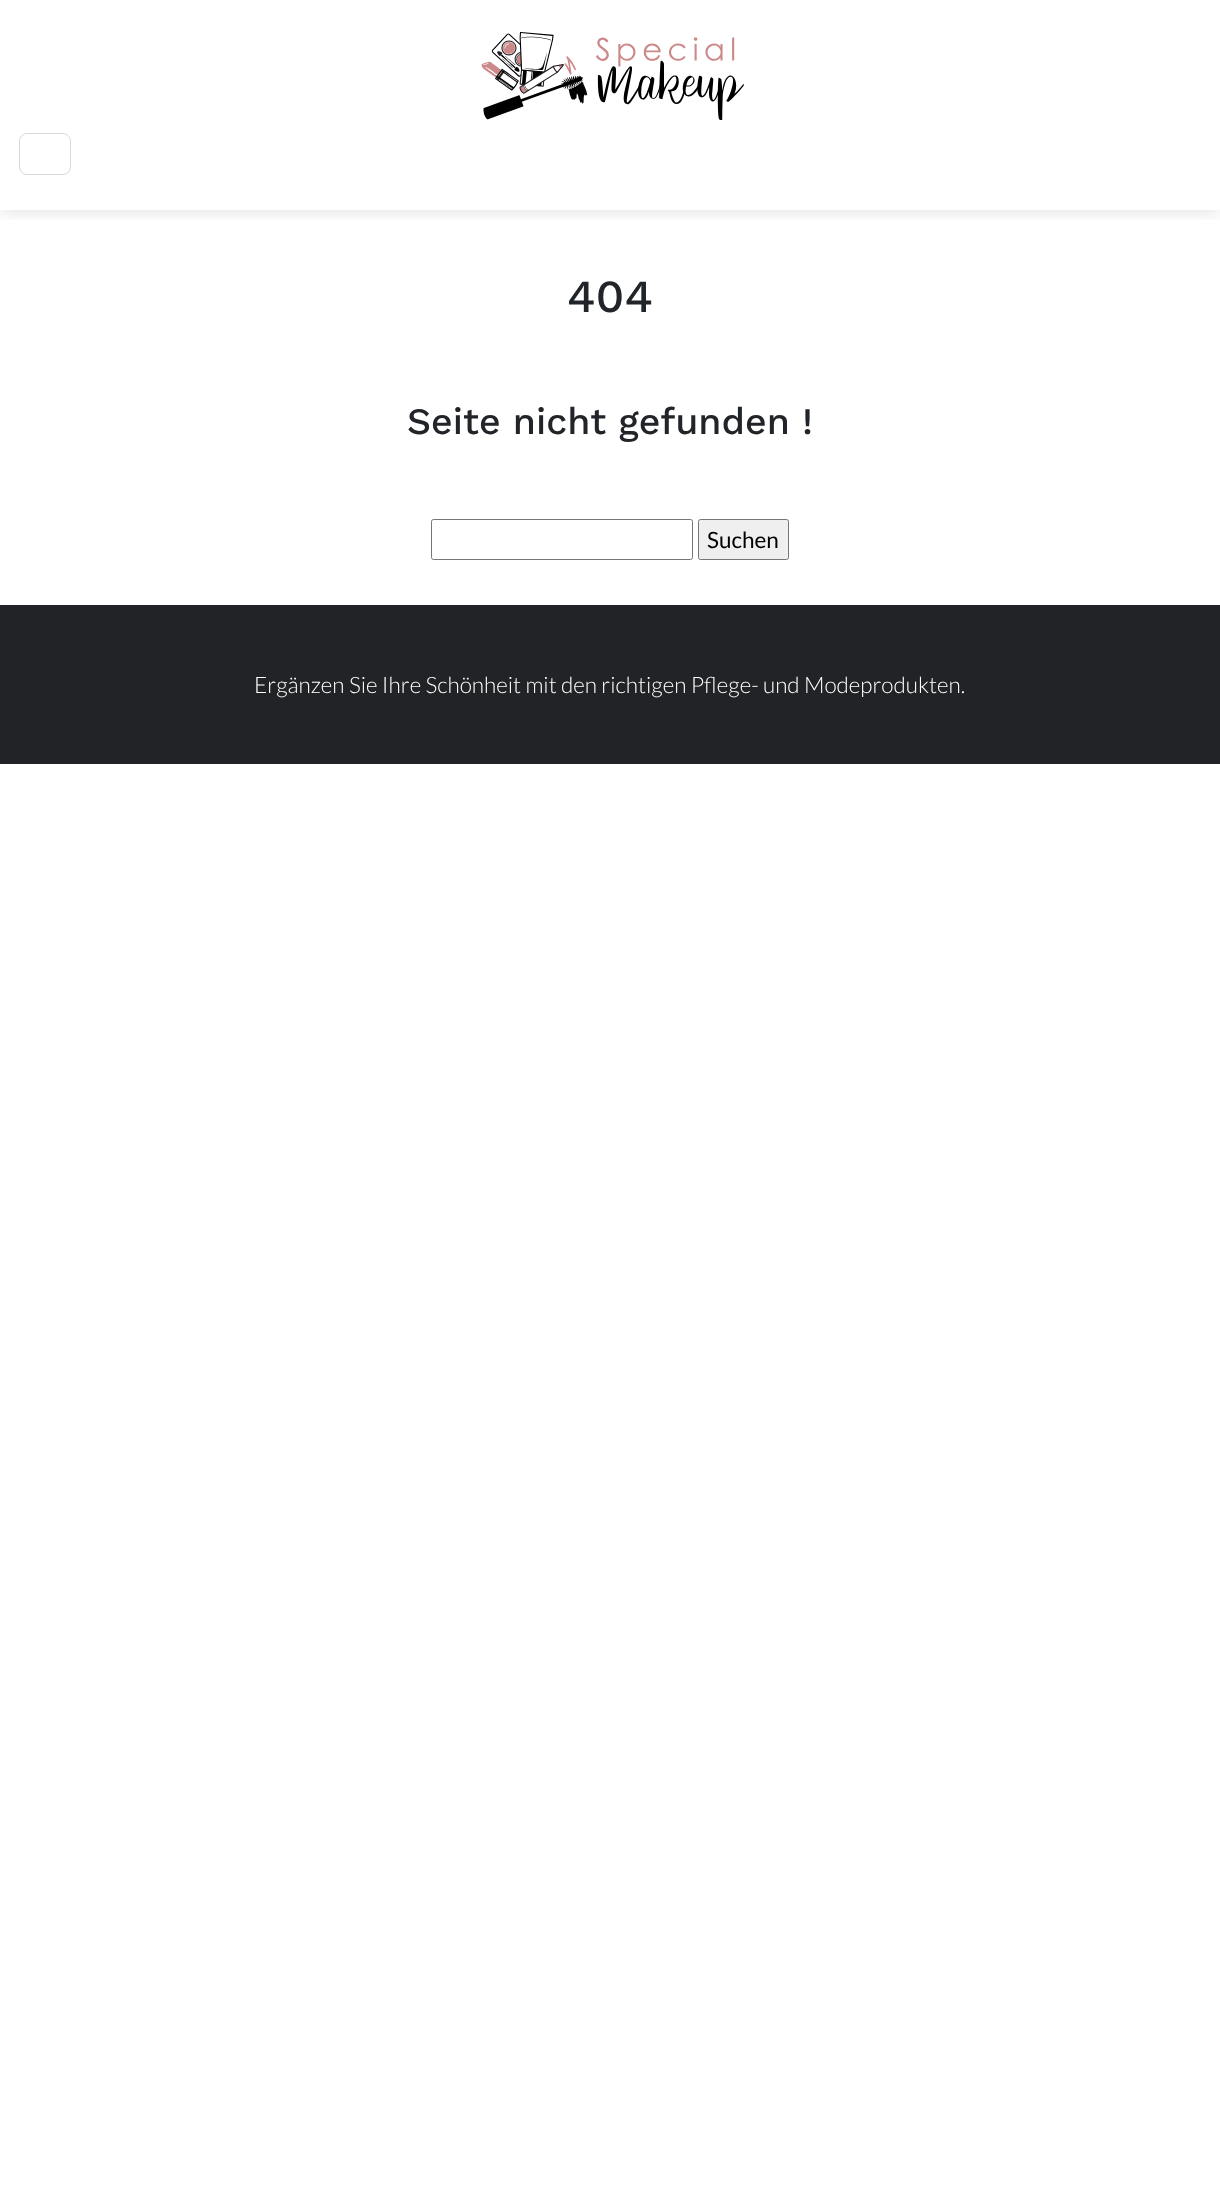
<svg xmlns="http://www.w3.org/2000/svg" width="1220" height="2199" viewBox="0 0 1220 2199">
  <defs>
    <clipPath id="clip1"><rect x="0" y="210" width="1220" height="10"/></clipPath>
  </defs>
  <rect width="100%" height="100%" fill="rgb(255,255,255)"/>
  <g clip-path="url(#clip1)">
    <rect x="0" y="3" width="1220" height="210" fill="rgba(0,0,0,0.1)" filter="blur(8px)"/>
  </g>
  <image x="481" y="32" width="263" height="88" href="pic1.png"/>
  <rect x="19.5" y="133.5" width="51" height="41" rx="7.5" fill="none" stroke="rgb(217,217,217)"/>
  <text x="567" y="312" font-family="Work Sans" font-size="46" font-weight="500" fill="rgb(33,37,41)">404</text>
  <text x="407" y="434" font-family="Work Sans" font-size="37.5" font-weight="500" fill="rgb(33,37,41)">Seite nicht gefunden !</text>
  <rect x="431.5" y="519.5" width="261" height="40" rx="2" fill="none" stroke="rgb(118,118,118)"/>
  <rect x="698.5" y="519.5" width="90" height="40" rx="2" fill="rgb(239,239,239)" stroke="rgb(118,118,118)"/>
  <text x="707" y="548" font-family="Lato" font-size="22.5" fill="rgb(0,0,0)">Suchen</text>
  <rect x="0" y="605" width="1220" height="159" fill="rgb(34,35,38)"/>
  <text x="254" y="693" font-family="Lato" font-size="22.5" font-weight="300" fill="rgb(255,255,255)">Ergänzen Sie Ihre Schönheit mit den richtigen Pflege- und Modeprodukten.</text>
</svg>
